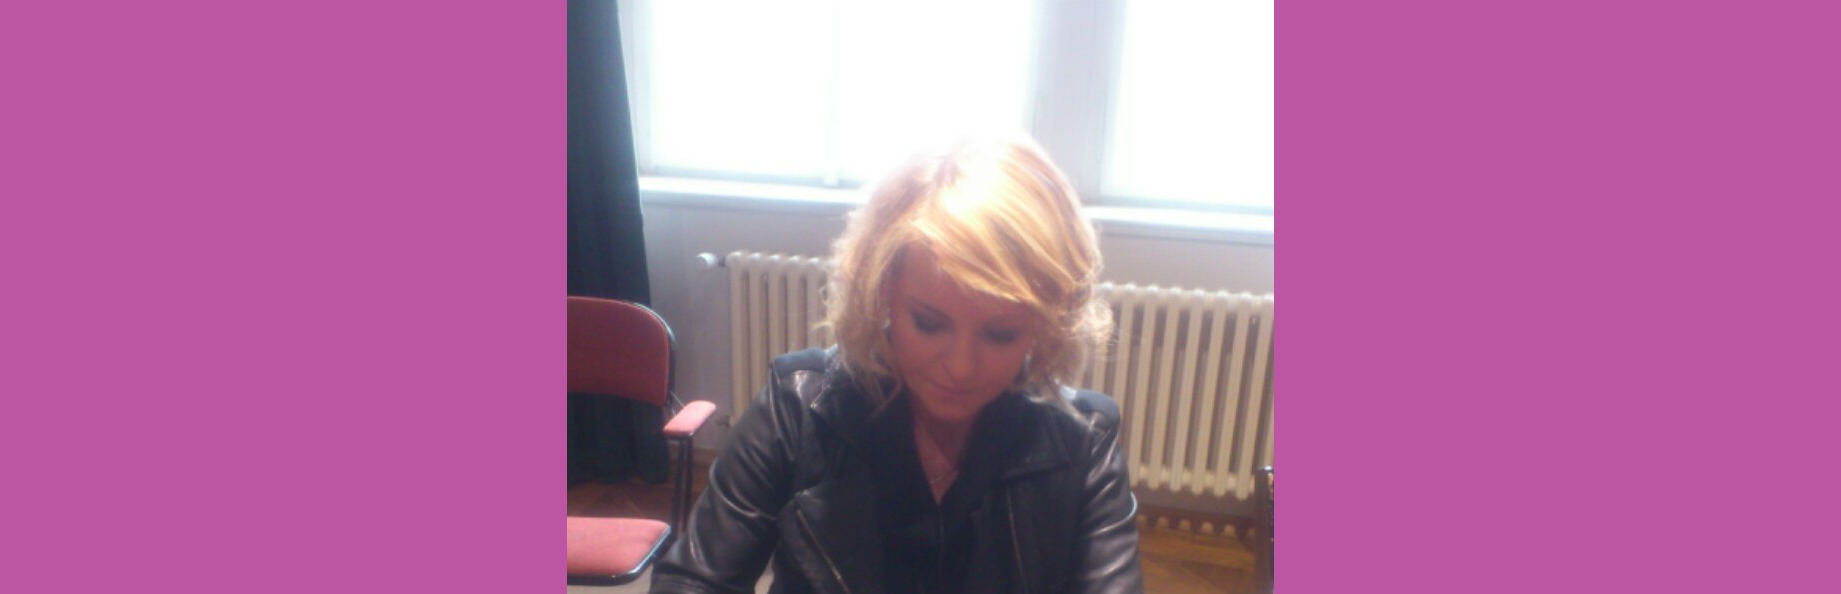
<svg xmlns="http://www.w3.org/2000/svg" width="1841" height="594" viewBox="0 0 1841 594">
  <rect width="100%" height="100%" fill="rgb(188,86,163)"/>
  <image x="567" y="0" width="707" height="594" href="pic1.png"/>
</svg>
